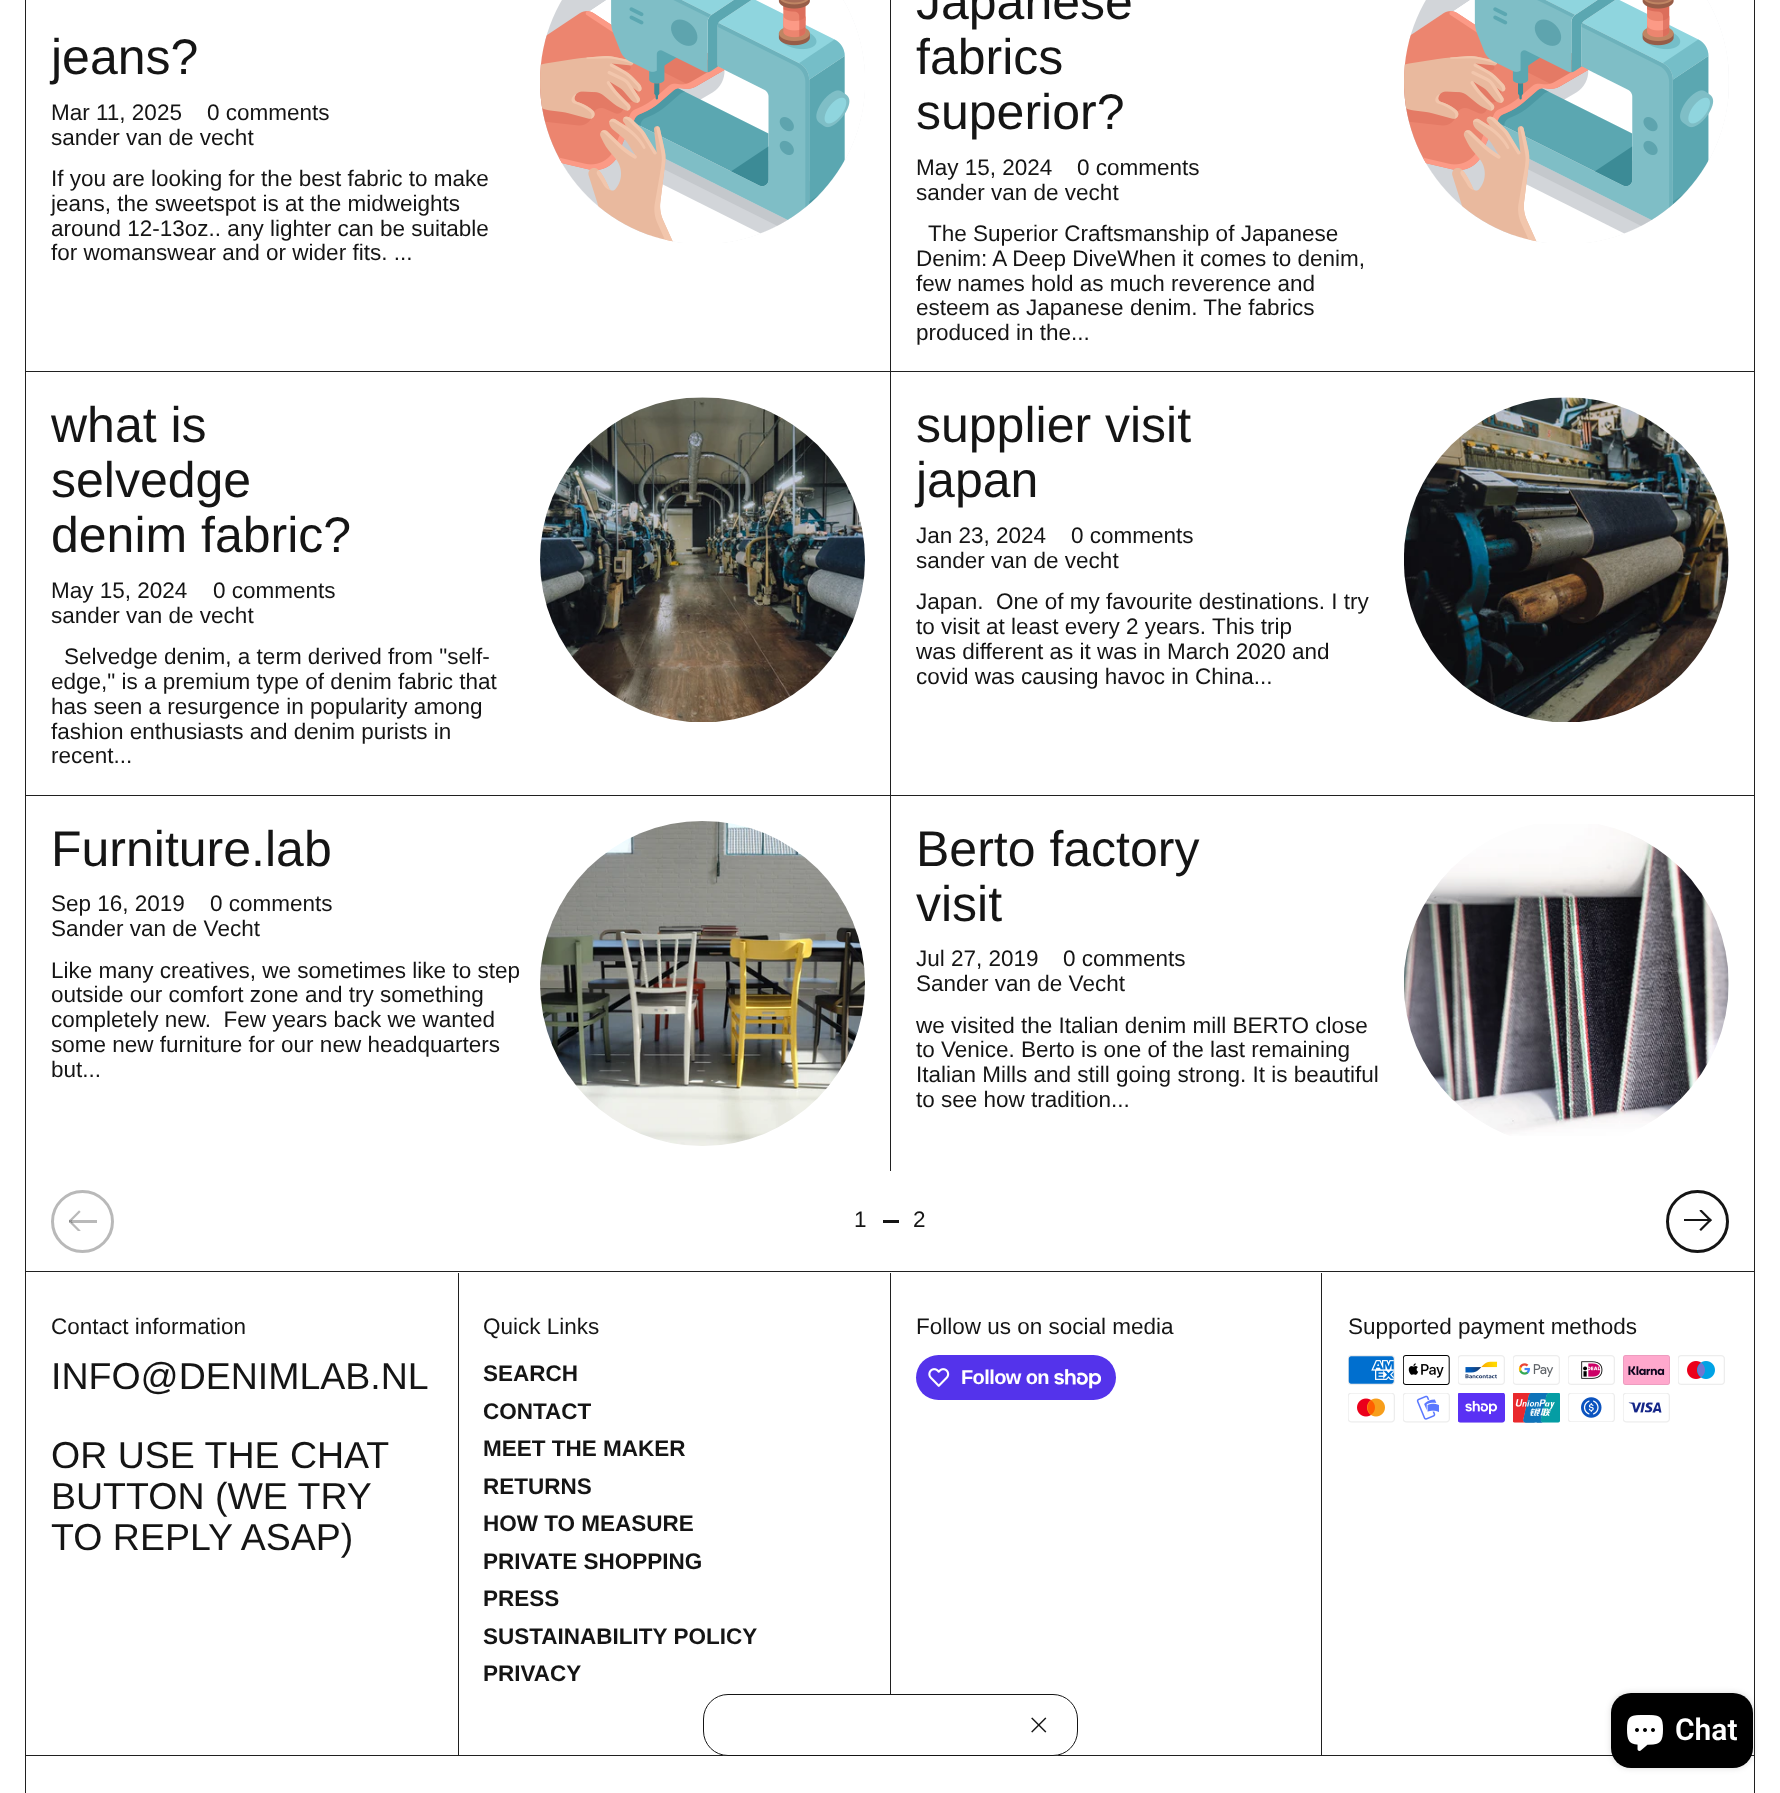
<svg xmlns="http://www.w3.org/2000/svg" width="1780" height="1793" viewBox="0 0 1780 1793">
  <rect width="100%" height="100%" fill="rgb(255,255,255)"/>
  <rect x="25.5" y="-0.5" width="1729" height="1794" fill="none" stroke="rgb(32,32,32)"/>
  <text x="51" y="74" font-family="Liberation Sans" font-size="50" fill="rgb(21,21,21)">jeans?</text>
  <g font-family="Liberation Sans" font-size="22.5" fill="rgb(21,21,21)">
    <text x="51" y="120">Mar 11, 2025</text>
    <text x="207" y="120">0 comments</text>
    <text>
      <tspan x="51" y="145">sander van de vecht</tspan>
      <tspan x="51" y="186">If you are looking for the best fabric to make</tspan>
      <tspan x="51" y="211">jeans, the sweetspot is at the midweights</tspan>
      <tspan x="51" y="236">around 12-13oz.. any lighter can be suitable</tspan>
      <tspan x="51" y="260">for womanswear and or wider fits. ...</tspan>
    </text>
  </g>
  <image x="540" y="0" width="325" height="244" href="pic1.png"/>
  <rect x="26" y="371" width="1728" height="1" fill="rgb(32,32,32)"/>
  <rect x="890" y="0" width="1" height="373" fill="rgb(32,32,32)"/>
  <g font-family="Liberation Sans" font-size="50" fill="rgb(21,21,21)">
    <text>
      <tspan x="916" y="19">Japanese</tspan>
      <tspan x="916" y="74">fabrics</tspan>
      <tspan x="916" y="129">superior?</tspan>
    </text>
  </g>
  <g font-family="Liberation Sans" font-size="22.5" fill="rgb(21,21,21)">
    <text x="916" y="175">May 15, 2024</text>
    <text x="1077" y="175">0 comments</text>
    <text x="916" y="200">sander van de vecht</text>
    <text x="928" y="241">The Superior Craftsmanship of Japanese</text>
    <text>
      <tspan x="916" y="266">Denim: A Deep DiveWhen it comes to denim,</tspan>
      <tspan x="916" y="291">few names hold as much reverence and</tspan>
      <tspan x="916" y="315">esteem as Japanese denim. The fabrics</tspan>
      <tspan x="916" y="340">produced in the...</tspan>
    </text>
  </g>
  <image x="1404" y="0" width="325" height="244" href="pic2.png"/>
  <g font-family="Liberation Sans" font-size="50" fill="rgb(21,21,21)">
    <text>
      <tspan x="51" y="442">what is</tspan>
      <tspan x="51" y="497">selvedge</tspan>
      <tspan x="51" y="552">denim fabric?</tspan>
    </text>
  </g>
  <g font-family="Liberation Sans" font-size="22.5" fill="rgb(21,21,21)">
    <text x="51" y="598">May 15, 2024</text>
    <text x="213" y="598">0 comments</text>
    <text x="51" y="623">sander van de vecht</text>
    <text x="64" y="664">Selvedge denim, a term derived from "self-</text>
    <text>
      <tspan x="51" y="689">edge," is a premium type of denim fabric that</tspan>
      <tspan x="51" y="714">has seen a resurgence in popularity among</tspan>
      <tspan x="51" y="739">fashion enthusiasts and denim purists in</tspan>
      <tspan x="51" y="763">recent...</tspan>
    </text>
  </g>
  <image x="540" y="397" width="325" height="325" href="pic3.png"/>
  <rect x="26" y="795" width="1728" height="1" fill="rgb(32,32,32)"/>
  <rect x="890" y="373" width="1" height="798" fill="rgb(32,32,32)"/>
  <g font-family="Liberation Sans" font-size="50" fill="rgb(21,21,21)">
    <text>
      <tspan x="916" y="442">supplier visit</tspan>
      <tspan x="916" y="497">japan</tspan>
    </text>
  </g>
  <g font-family="Liberation Sans" font-size="22.5" fill="rgb(21,21,21)">
    <text x="916" y="543">Jan 23, 2024</text>
    <text x="1071" y="543">0 comments</text>
    <text xml:space="preserve"><tspan x="916" y="568">sander van de vecht</tspan><tspan x="916" y="609">Japan.  One of my favourite destinations. I try</tspan><tspan x="916" y="634">to visit at least every 2 years. This trip</tspan><tspan x="916" y="659">was different as it was in March 2020 and</tspan><tspan x="916" y="684">covid was causing havoc in China...</tspan></text>
  </g>
  <image x="1404" y="397" width="325" height="325" href="pic4.png"/>
  <text x="51" y="866" font-family="Liberation Sans" font-size="50" fill="rgb(21,21,21)">Furniture.lab</text>
  <g font-family="Liberation Sans" font-size="22.5" fill="rgb(21,21,21)">
    <text x="51" y="911">Sep 16, 2019</text>
    <text x="210" y="911">0 comments</text>
    <text xml:space="preserve"><tspan x="51" y="936">Sander van de Vecht</tspan><tspan x="51" y="978">Like many creatives, we sometimes like to step</tspan><tspan x="51" y="1002">outside our comfort zone and try something</tspan><tspan x="51" y="1027">completely new.  Few years back we wanted</tspan><tspan x="51" y="1052">some new furniture for our new headquarters</tspan><tspan x="51" y="1077">but...</tspan></text>
  </g>
  <image x="540" y="821" width="325" height="325" href="pic5.png"/>
  <g font-family="Liberation Sans" font-size="50" fill="rgb(21,21,21)">
    <text>
      <tspan x="916" y="866">Berto factory</tspan>
      <tspan x="916" y="921">visit</tspan>
    </text>
  </g>
  <g font-family="Liberation Sans" font-size="22.5" fill="rgb(21,21,21)">
    <text x="916" y="966">Jul 27, 2019</text>
    <text x="1063" y="966">0 comments</text>
    <text>
      <tspan x="916" y="991">Sander van de Vecht</tspan>
      <tspan x="916" y="1033">we visited the Italian denim mill BERTO close</tspan>
      <tspan x="916" y="1057">to Venice. Berto is one of the last remaining</tspan>
      <tspan x="916" y="1082">Italian Mills and still going strong. It is beautiful</tspan>
      <tspan x="916" y="1107">to see how tradition...</tspan>
    </text>
  </g>
  <image x="1404" y="824" width="325" height="312" href="pic6.png"/>
  <circle cx="82.5" cy="1221.5" r="30" fill="none" stroke="rgb(185,185,185)" stroke-width="3"/>
  <image x="69" y="1210" width="28" height="21" href="pic7.png"/>
  <text x="854" y="1227" font-family="Liberation Sans" font-size="22.5" fill="rgb(21,21,21)">1</text>
  <rect x="883" y="1220" width="16" height="3" fill="rgb(21,21,21)"/>
  <text x="913" y="1227" font-family="Liberation Sans" font-size="22.5" fill="rgb(21,21,21)">2</text>
  <circle cx="1697.5" cy="1221.5" r="30" fill="none" stroke="rgb(21,21,21)" stroke-width="3"/>
  <image x="1684" y="1210" width="28" height="21" href="pic8.png"/>
  <rect x="26" y="1271" width="1728" height="1" fill="rgb(32,32,32)"/>
  <text x="51" y="1334" font-family="Liberation Sans" font-size="22.5" fill="rgb(21,21,21)">Contact information</text>
  <g font-family="Liberation Sans" font-size="37.5" fill="rgb(21,21,21)">
    <text x="51" y="1389">INFO@DENIMLAB.NL</text>
    <text>
      <tspan x="51" y="1468">OR USE THE CHAT</tspan>
      <tspan x="51" y="1509">BUTTON (WE TRY</tspan>
      <tspan x="51" y="1550">TO REPLY ASAP)</tspan>
    </text>
  </g>
  <rect x="458" y="1273" width="1" height="483" fill="rgb(32,32,32)"/>
  <text x="483" y="1334" font-family="Liberation Sans" font-size="22.5" fill="rgb(21,21,21)">Quick Links</text>
  <g font-family="Liberation Sans" font-size="22.5" font-weight="bold" fill="rgb(21,21,21)">
    <text>
      <tspan x="483" y="1381">SEARCH</tspan>
      <tspan x="483" y="1419">CONTACT</tspan>
      <tspan x="483" y="1456">MEET THE MAKER</tspan>
      <tspan x="483" y="1494">RETURNS</tspan>
      <tspan x="483" y="1531">HOW TO MEASURE</tspan>
      <tspan x="483" y="1569">PRIVATE SHOPPING</tspan>
      <tspan x="483" y="1606">PRESS</tspan>
      <tspan x="483" y="1644">SUSTAINABILITY POLICY</tspan>
      <tspan x="483" y="1681">PRIVACY</tspan>
    </text>
  </g>
  <rect x="890" y="1273" width="1" height="421" fill="rgb(32,32,32)"/>
  <text x="916" y="1334" font-family="Liberation Sans" font-size="22.5" fill="rgb(21,21,21)">Follow us on social media</text>
  <rect x="916" y="1355" width="200" height="45" rx="22.5" fill="rgb(84,51,235)"/>
  <image x="928" y="1368" width="22" height="19" href="pic9.png"/>
  <text x="961" y="1384" font-family="Liberation Sans" font-size="20" font-weight="bold" letter-spacing="-0.6" fill="rgb(255,255,255)">Follow on</text>
  <image x="1054" y="1369" width="47" height="20" href="pic10.png"/>
  <rect x="1321" y="1273" width="1" height="483" fill="rgb(32,32,32)"/>
  <text x="1348" y="1334" font-family="Liberation Sans" font-size="22.5" fill="rgb(21,21,21)">Supported payment methods</text>
  <image x="1348" y="1355" width="47" height="30" href="pic11.png"/>
  <image x="1403" y="1355" width="47" height="30" href="pic12.png"/>
  <image x="1458" y="1355" width="47" height="30" href="pic13.png"/>
  <image x="1513" y="1355" width="47" height="30" href="pic14.png"/>
  <image x="1568" y="1355" width="47" height="30" href="pic15.png"/>
  <image x="1623" y="1355" width="47" height="30" href="pic16.png"/>
  <image x="1678" y="1355" width="47" height="30" href="pic17.png"/>
  <image x="1348" y="1393" width="47" height="30" href="pic18.png"/>
  <image x="1403" y="1393" width="47" height="30" href="pic19.png"/>
  <image x="1458" y="1393" width="47" height="30" href="pic20.png"/>
  <image x="1513" y="1393" width="47" height="30" href="pic21.png"/>
  <image x="1568" y="1393" width="47" height="29" href="pic22.png"/>
  <image x="1623" y="1393" width="47" height="30" href="pic23.png"/>
  <rect x="26" y="1755" width="1728" height="1" fill="rgb(32,32,32)"/>
  <rect x="703.5" y="1694.5" width="374" height="61" rx="24.5" fill="rgb(255,255,255)" stroke="rgb(21,21,21)"/>
  <image x="1031" y="1717" width="16" height="16" href="pic24.png"/>
  <rect x="1611" y="1693" width="142" height="75" rx="20" fill="rgba(0,0,0,0.15)" filter="blur(3px)"/>
  <rect x="1611" y="1693" width="142" height="75" rx="20" fill="rgb(0,0,0)"/>
  <image x="1627" y="1715" width="36" height="36" href="pic25.png"/>
  <text x="1675" y="1740" font-family="Roboto" font-size="30" font-weight="600" fill="rgb(255,255,255)">Chat</text>
</svg>
